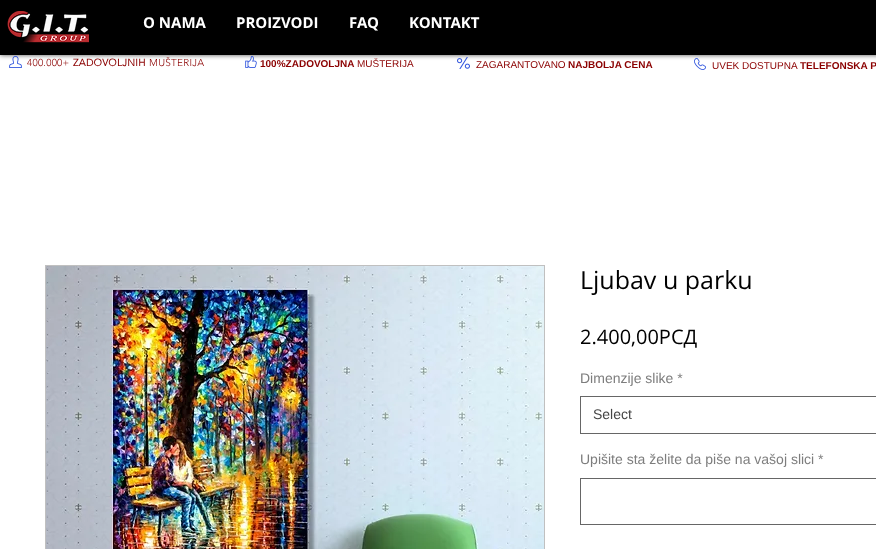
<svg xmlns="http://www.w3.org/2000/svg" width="876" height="549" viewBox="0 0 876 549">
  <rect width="100%" height="100%" fill="rgb(255,255,255)"/>
  <rect x="0" y="0" width="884" height="55" fill="rgba(0,0,0,0.7)" filter="blur(2.5px)"/>
  <rect x="0" y="0" width="876" height="55" fill="rgb(0,0,0)"/>
  <image x="7" y="11" width="82" height="32" href="pic1.png"/>
  <g font-family="Open Sans" font-size="15" font-weight="bold" fill="rgb(255,255,255)">
    <text x="143" y="28">O NAMA</text>
    <text x="236" y="28">PROIZVODI</text>
    <text x="349" y="28">FAQ</text>
    <text x="409" y="28">KONTAKT</text>
  </g>
  <image x="9" y="56" width="13" height="12" href="pic2.png"/>
  <text x="27" y="66" font-family="'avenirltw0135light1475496'" font-size="10" font-weight="300" letter-spacing="0.25" fill="rgb(139,0,0)">400.000+</text>
  <text x="73" y="66" font-family="'avenirltw0135light1475496'" font-size="10" font-weight="bold" letter-spacing="0.25" fill="rgb(139,0,0)">ZADOVOLJNIH</text>
  <text x="149" y="66" font-family="'avenirltw0135light1475496'" font-size="10" font-weight="300" letter-spacing="0.25" fill="rgb(139,0,0)">MUŠTERIJA</text>
  <image x="245" y="56" width="12" height="12" href="pic3.png"/>
  <text x="260" y="67" font-family="Liberation Sans" font-size="10" font-weight="bold" fill="rgb(139,0,0)">100%ZADOVOLJNA</text>
  <text x="357" y="67" font-family="Liberation Sans" font-size="10" fill="rgb(139,0,0)">MUŠTERIJA</text>
  <image x="457" y="57" width="13" height="12" href="pic4.png"/>
  <text x="476" y="68" font-family="Liberation Sans" font-size="10" fill="rgb(139,0,0)">ZAGARANTOVANO</text>
  <text x="568" y="68" font-family="Liberation Sans" font-size="10" font-weight="bold" fill="rgb(139,0,0)">NAJBOLJA CENA</text>
  <image x="694" y="58" width="12" height="12" href="pic5.png"/>
  <text x="712" y="69" font-family="Liberation Sans" font-size="10" fill="rgb(139,0,0)">UVEK DOSTUPNA</text>
  <text x="800" y="69" font-family="Liberation Sans" font-size="10" font-weight="bold" fill="rgb(139,0,0)">TELEFONSKA P</text>
  <rect x="45.5" y="265.5" width="499" height="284" fill="none" stroke="rgb(192,192,192)"/>
  <image x="46" y="266" width="498" height="283" href="pic6.png"/>
  <text x="580" y="289" font-family="Open Sans" font-size="25" fill="rgb(0,0,0)">Ljubav u parku</text>
  <text x="580" y="344" font-family="Open Sans" font-size="20" fill="rgb(0,0,0)">2.400,00РСД</text>
  <text x="580" y="383" font-family="Liberation Sans" font-size="14" fill="rgb(125,125,125)">Dimenzije slike *</text>
  <rect x="580.5" y="396.5" width="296" height="37" fill="none" stroke="rgb(102,102,102)"/>
  <text x="593" y="419" font-family="Liberation Sans" font-size="14" fill="rgb(68,68,68)">Select</text>
  <text x="580" y="464" font-family="Liberation Sans" font-size="14" fill="rgb(125,125,125)">Upišite sta želite da piše na vašoj slici *</text>
  <rect x="580.5" y="478.5" width="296" height="46" fill="none" stroke="rgb(102,102,102)"/>
</svg>
